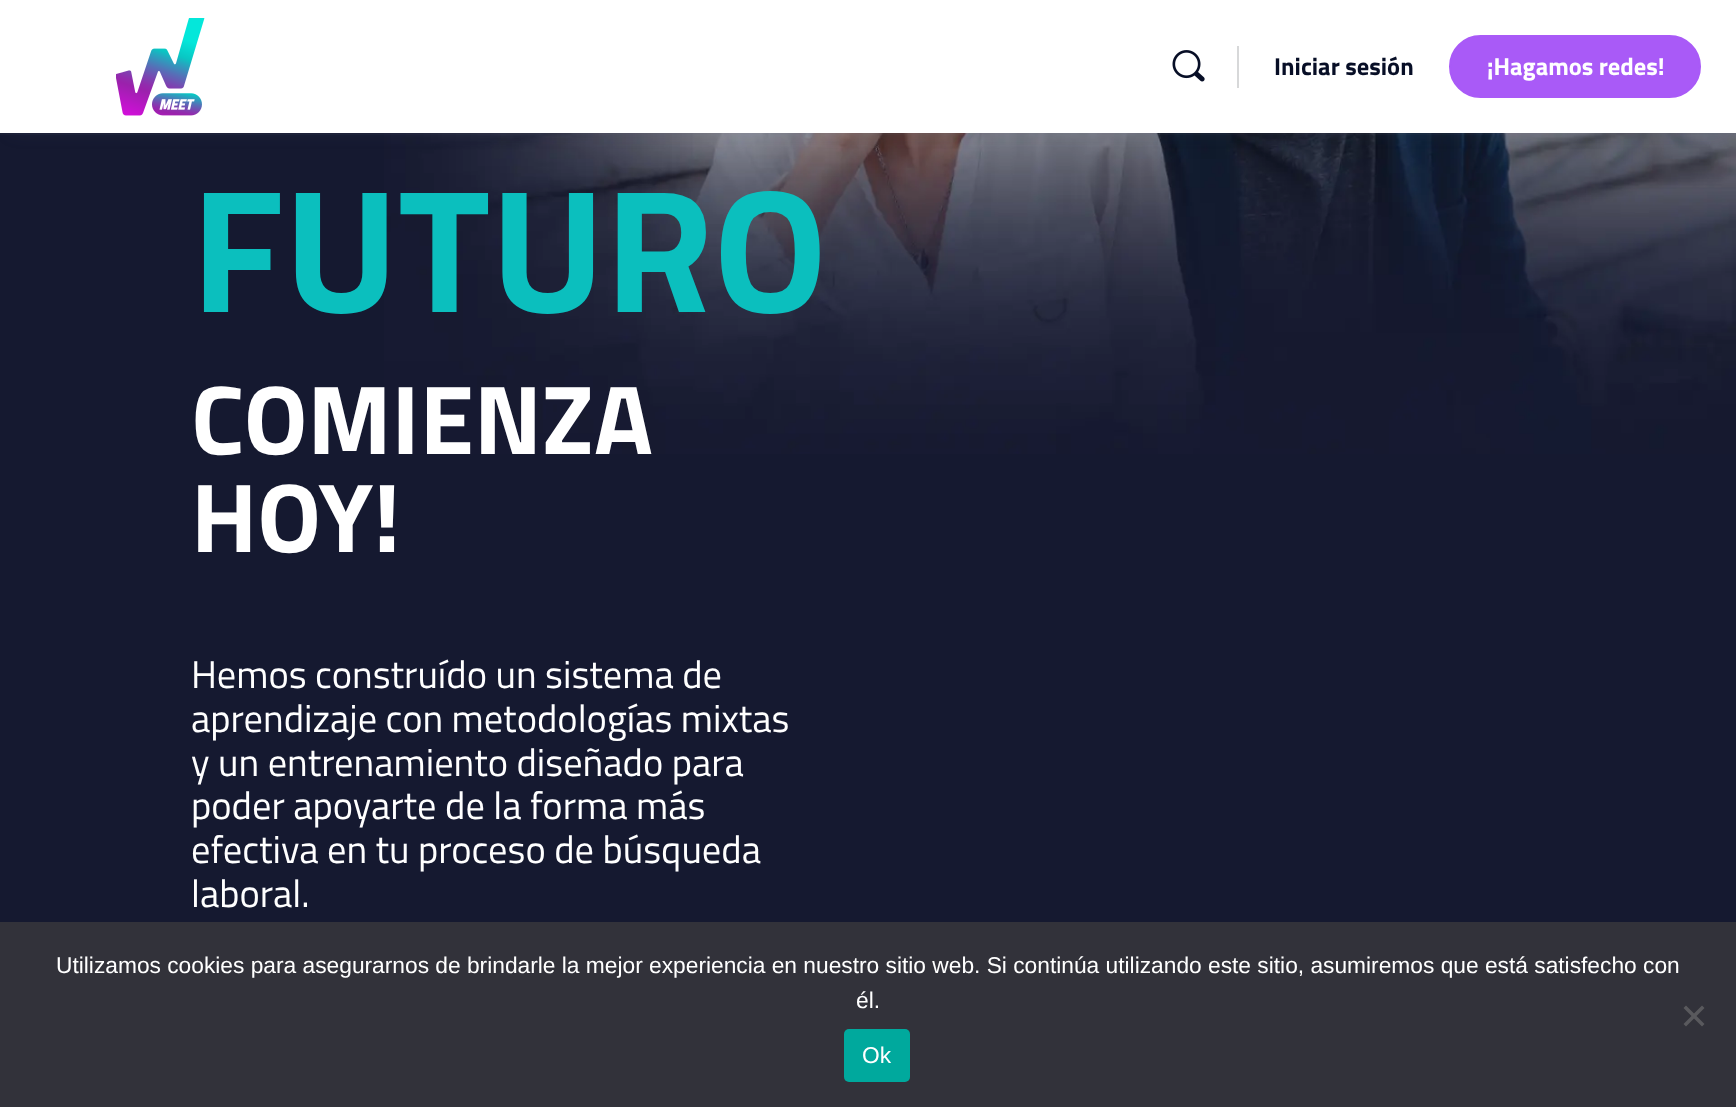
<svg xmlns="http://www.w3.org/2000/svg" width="1736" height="1107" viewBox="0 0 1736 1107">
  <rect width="100%" height="100%" fill="rgb(21,25,48)"/>
  <image x="384" y="133" width="1352" height="321" href="pic1.png"/>
  <rect x="12" y="21" width="1712" height="109" fill="rgba(65,71,108,0.25)" filter="blur(9px)"/>
  <rect x="0" y="133" width="1677" height="2" fill="rgba(139,141,157,0.05)"/>
  <rect x="0" y="0" width="1736" height="133" fill="rgb(255,255,255)"/>
  <image x="116" y="18" width="89" height="98" href="pic2.png"/>
  <image x="1172" y="50" width="33" height="32" href="pic3.png"/>
  <rect x="1237" y="46" width="2" height="42" fill="rgb(215,216,217)"/>
  <text x="1274" y="75" font-family="Titillium Web" font-size="24.5" font-weight="bold" fill="rgb(7,14,38)">Iniciar sesión</text>
  <rect x="1450" y="36" width="250" height="61" rx="30.5" fill="rgb(169,90,247)" stroke="rgb(169,90,247)" stroke-width="2"/>
  <text x="1487" y="75" font-family="Titillium Web" font-size="24.5" font-weight="bold" fill="rgb(255,255,255)">¡Hagamos redes!</text>
  <text x="191" y="312" font-family="Titillium Web" font-size="175" font-weight="bold" fill="rgb(11,191,190)">FUTURO</text>
  <g font-family="Titillium Web" font-size="98" font-weight="bold" fill="rgb(255,255,255)">
    <text>
      <tspan x="191" y="454">COMIENZA</tspan>
      <tspan x="191" y="552">HOY!</tspan>
    </text>
  </g>
  <g font-family="Titillium Web" font-size="38.5" fill="rgb(255,255,255)">
    <text>
      <tspan x="191" y="688">Hemos construído un sistema de</tspan>
      <tspan x="191" y="732">aprendizaje con metodologías mixtas</tspan>
      <tspan x="191" y="776">y un entrenamiento diseñado para</tspan>
      <tspan x="191" y="819">poder apoyarte de la forma más</tspan>
      <tspan x="191" y="863">efectiva en tu proceso de búsqueda</tspan>
      <tspan x="191" y="907">laboral.</tspan>
    </text>
  </g>
  <rect x="0" y="922" width="1736" height="185" fill="rgb(50,50,58)"/>
  <g font-family="Liberation Sans" font-size="22.75" fill="rgb(255,255,255)">
    <text x="56" y="973">Utilizamos cookies para asegurarnos de brindarle la mejor experiencia en nuestro sitio web. Si continúa utilizando este sitio, asumiremos que está satisfecho con</text>
    <text x="856" y="1008">él.</text>
  </g>
  <path d="M1702 1005.5L1704.5 1008L1686 1026.5L1683.5 1024Z" fill="rgb(89,89,93)"/>
  <path d="M1683.5 1008L1686 1005.5L1704.5 1024L1702 1026.5Z" fill="rgb(89,89,93)"/>
  <rect x="844" y="1029" width="66" height="53" rx="5" fill="rgb(0,169,157)"/>
  <text x="862" y="1063" font-family="Liberation Sans" font-size="22.75" fill="rgb(255,255,255)">Ok</text>
</svg>
